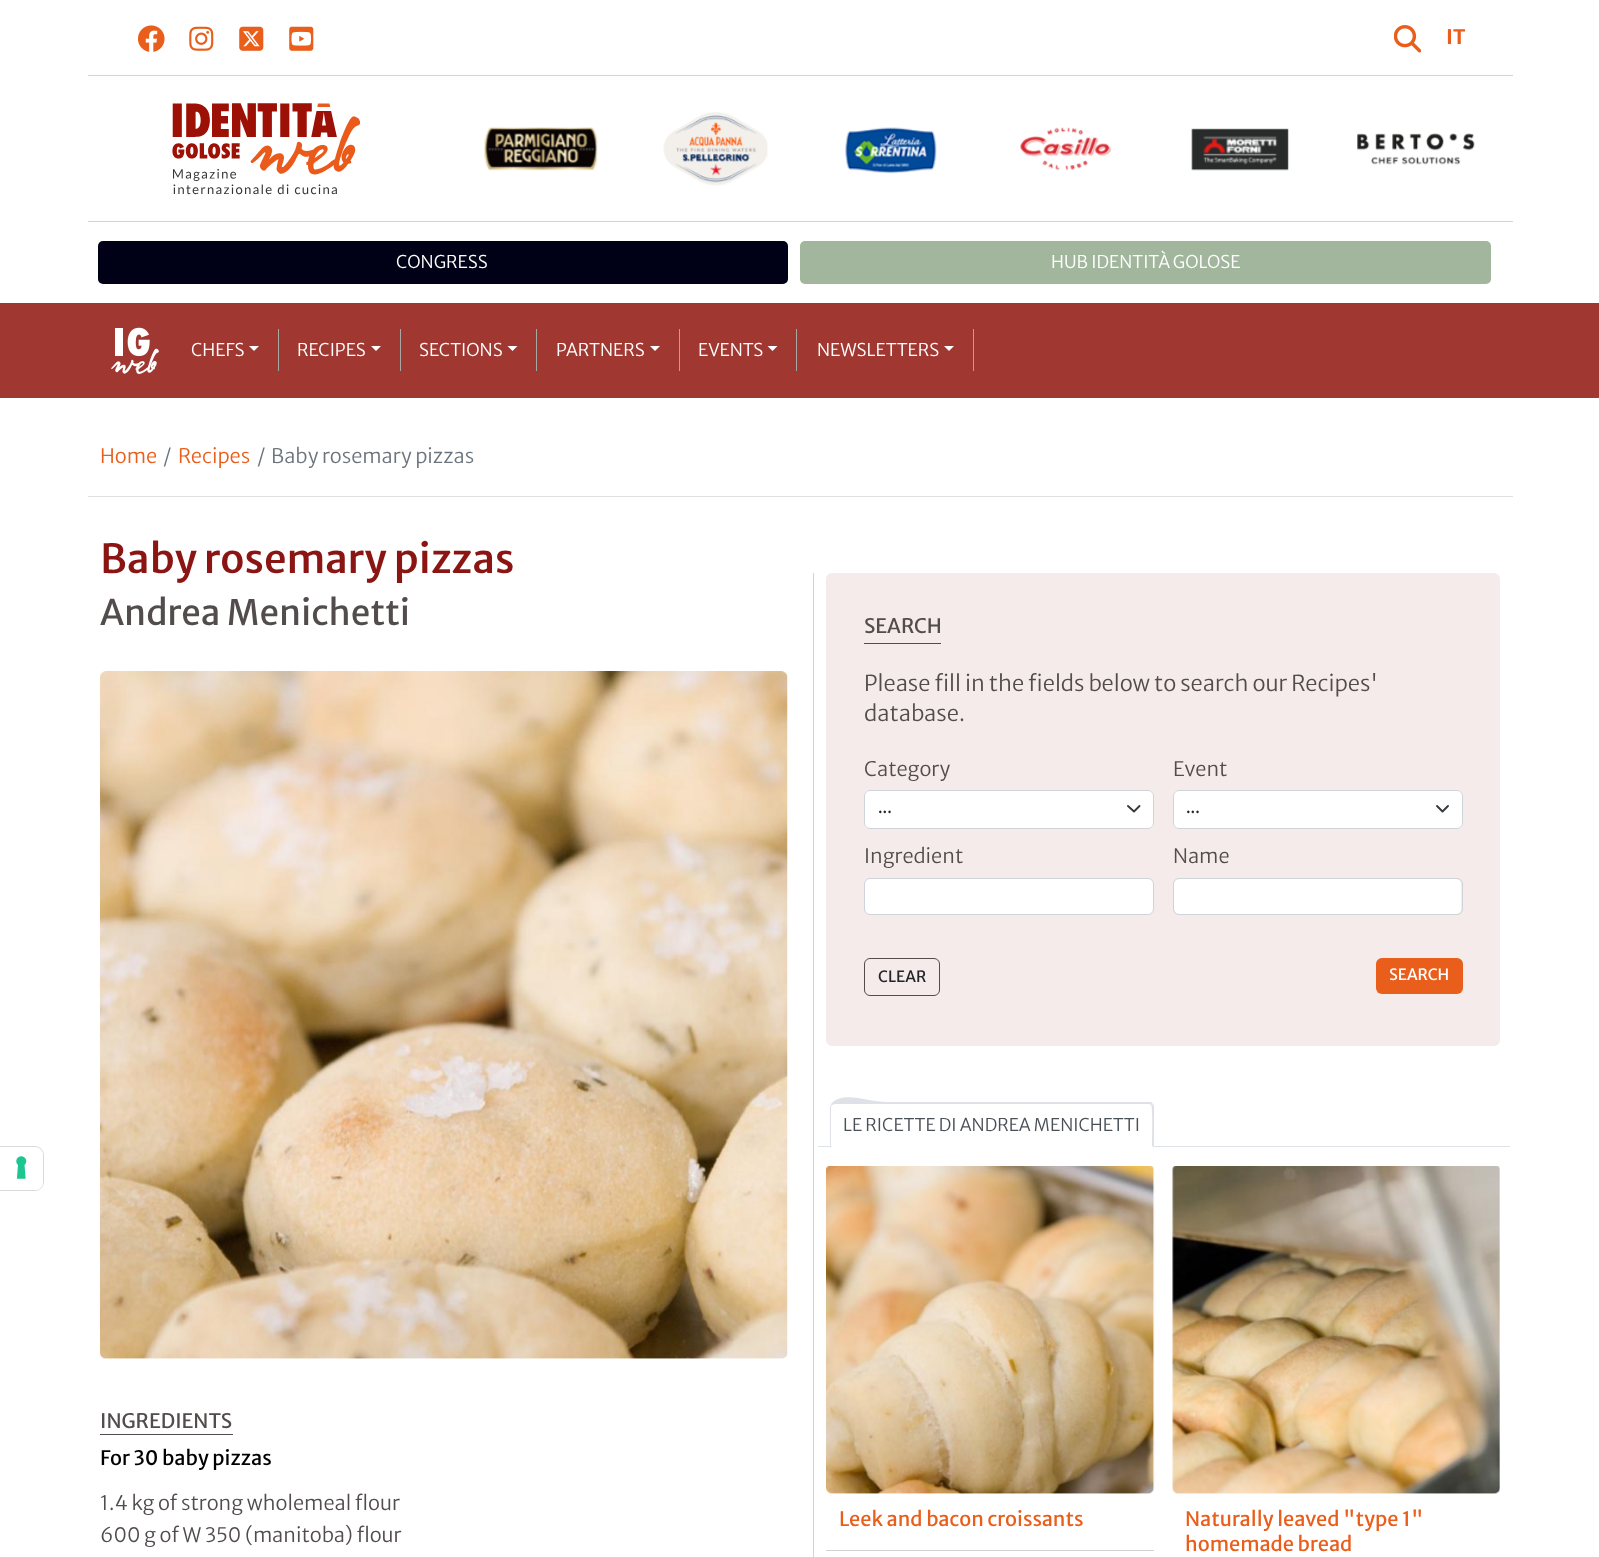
<svg xmlns="http://www.w3.org/2000/svg" width="1599" height="1557" viewBox="0 0 1599 1557">
  <rect width="100%" height="100%" fill="rgb(255,255,255)"/>
  <image x="138" y="25" width="27" height="27" href="pic1.png"/>
  <image x="189" y="26" width="25" height="25" href="pic2.png"/>
  <image x="239" y="26" width="25" height="25" href="pic3.png"/>
  <image x="289" y="26" width="25" height="25" href="pic4.png"/>
  <image x="1394" y="25" width="27" height="28" href="pic5.png"/>
  <text x="1446" y="44" font-family="Merriweather Sans" font-size="20" font-weight="bold" fill="rgb(233,94,27)">IT</text>
  <rect x="88" y="75" width="1425" height="1" fill="rgb(212,210,210)"/>
  <rect x="88" y="221" width="1425" height="1" fill="rgb(212,210,210)"/>
  <image x="172" y="103" width="189" height="92" href="pic6.png"/>
  <image x="484" y="127" width="114" height="44" href="pic7.png"/>
  <image x="663" y="112" width="105" height="74" href="pic8.png"/>
  <image x="845" y="127" width="92" height="47" href="pic9.png"/>
  <image x="1020" y="127" width="92" height="44" href="pic10.png"/>
  <image x="1191" y="128" width="98" height="43" href="pic11.png"/>
  <image x="1357" y="133" width="118" height="32" href="pic12.png"/>
  <rect x="98" y="241" width="690" height="43" rx="5" fill="rgb(0,0,22)"/>
  <text x="396" y="268" font-family="Merriweather Sans" font-size="17.5" font-weight="300" fill="rgb(255,255,255)">CONGRESS</text>
  <rect x="800" y="241" width="691" height="43" rx="5" fill="rgb(161,182,156)"/>
  <text x="1051" y="268" font-family="Merriweather Sans" font-size="17.5" font-weight="300" fill="rgb(255,255,255)">HUB IDENTITÀ GOLOSE</text>
  <rect x="0" y="303" width="1599" height="95" fill="rgb(160,55,49)"/>
  <image x="111" y="327" width="48" height="47" href="pic13.png"/>
  <rect x="278" y="329" width="1" height="42" fill="rgb(169,166,166)"/>
  <text x="191" y="356" font-family="Merriweather Sans" font-size="17.5" font-weight="300" fill="rgb(255,255,255)">CHEFS</text>
  <path d="M249 346H259L254 351Z" fill="rgb(255,255,255)"/>
  <rect x="400" y="329" width="1" height="42" fill="rgb(169,166,166)"/>
  <text x="297" y="356" font-family="Merriweather Sans" font-size="17.5" font-weight="300" fill="rgb(255,255,255)">RECIPES</text>
  <path d="M371 346H381L376 351Z" fill="rgb(255,255,255)"/>
  <rect x="536" y="329" width="1" height="42" fill="rgb(169,166,166)"/>
  <text x="419" y="356" font-family="Merriweather Sans" font-size="17.5" font-weight="300" fill="rgb(255,255,255)">SECTIONS</text>
  <path d="M507.5 346H517.5L512.5 351Z" fill="rgb(255,255,255)"/>
  <rect x="679" y="329" width="1" height="42" fill="rgb(169,166,166)"/>
  <text x="556" y="356" font-family="Merriweather Sans" font-size="17.5" font-weight="300" fill="rgb(255,255,255)">PARTNERS</text>
  <path d="M650 346H660L655 351Z" fill="rgb(255,255,255)"/>
  <rect x="796" y="329" width="1" height="42" fill="rgb(169,166,166)"/>
  <text x="698" y="356" font-family="Merriweather Sans" font-size="17.5" font-weight="300" fill="rgb(255,255,255)">EVENTS</text>
  <path d="M767.5 346H777.5L772.5 351Z" fill="rgb(255,255,255)"/>
  <rect x="973" y="329" width="1" height="42" fill="rgb(169,166,166)"/>
  <text x="817" y="356" font-family="Merriweather Sans" font-size="17.5" font-weight="300" fill="rgb(255,255,255)">NEWSLETTERS</text>
  <path d="M944 346H954L949 351Z" fill="rgb(255,255,255)"/>
  <path d="M-.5 1146.5H35C39.5 1146.5 43.5 1150.5 43.5 1155V1182C43.5 1186.5 39.5 1190.5 35 1190.5H-.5Z" fill="none" stroke="rgb(217,217,217)"/>
  <path d="M0 1148H35C39.5 1148 43 1151.5 43 1156V1182C43 1186.5 39.5 1190 35 1190H0Z" fill="rgb(255,255,255)"/>
  <image x="16" y="1156" width="11" height="23" href="pic14.png"/>
  <rect x="88" y="496" width="1425" height="1" fill="rgb(224,224,224)"/>
  <text x="100" y="463" font-family="Merriweather Sans" font-size="20" font-weight="300" fill="rgb(233,94,27)">Home</text>
  <text x="163" y="463" font-family="Merriweather Sans" font-size="20" font-weight="300" fill="rgb(108,117,125)">/</text>
  <text x="178" y="463" font-family="Merriweather Sans" font-size="20" font-weight="300" fill="rgb(233,94,27)">Recipes</text>
  <g font-family="Merriweather Sans" font-size="20" font-weight="300" fill="rgb(108,117,125)">
    <text x="257" y="463">/</text>
    <text x="271" y="463">Baby rosemary pizzas</text>
  </g>
  <text x="100" y="573" font-family="Merriweather Sans" font-size="40" font-weight="500" fill="rgb(139,21,19)">Baby rosemary pizzas</text>
  <text x="100" y="625" font-family="Merriweather Sans" font-size="35" fill="rgb(82,76,76)">Andrea Menichetti</text>
  <image x="100" y="671" width="688" height="688" href="pic15.png"/>
  <rect x="100" y="1434" width="133" height="1" fill="rgb(82,76,76)"/>
  <text x="100" y="1428" font-family="Merriweather Sans" font-size="20" fill="rgb(82,76,76)">INGREDIENTS</text>
  <text x="100" y="1465" font-family="Merriweather Sans" font-size="20" fill="rgb(0,0,0)">For 30 baby pizzas</text>
  <g font-family="Merriweather Sans" font-size="20" font-weight="300" fill="rgb(82,76,76)">
    <text>
      <tspan x="100" y="1510">1.4 kg of strong wholemeal flour</tspan>
      <tspan x="100" y="1542">600 g of W 350 (manitoba) flour</tspan>
    </text>
  </g>
  <rect x="813" y="573" width="1" height="984" fill="rgb(212,210,210)"/>
  <rect x="826" y="573" width="674" height="473" rx="6" fill="rgb(245,235,234)"/>
  <rect x="864" y="643" width="77" height="1" fill="rgb(82,76,76)"/>
  <text x="864" y="633" font-family="Merriweather Sans" font-size="20" fill="rgb(82,76,76)">SEARCH</text>
  <g font-family="Merriweather Sans" font-size="21.9" font-weight="300" fill="rgb(82,76,76)">
    <text>
      <tspan x="864" y="691">Please fill in the fields below to search our Recipes'</tspan>
      <tspan x="864" y="721">database.</tspan>
    </text>
  </g>
  <text x="864" y="776" font-family="Merriweather Sans" font-size="20" font-weight="300" fill="rgb(82,76,76)">Category</text>
  <rect x="864" y="790" width="290" height="39" rx="6" fill="rgb(255,255,255)"/>
  <path d="M1128 806L1134 811.5L1139.5 806" fill="none" stroke="rgb(52,58,64)" stroke-width="1.9" stroke-linecap="round" stroke-linejoin="round"/>
  <rect x="864.5" y="790.5" width="289" height="38" rx="5.5" fill="none" stroke="rgb(206,212,218)"/>
  <text x="878" y="813" font-family="Merriweather Sans" font-size="15.5" fill="rgb(33,37,41)">...</text>
  <text x="1173" y="776" font-family="Merriweather Sans" font-size="20" font-weight="300" fill="rgb(82,76,76)">Event</text>
  <rect x="1173" y="790" width="290" height="39" rx="6" fill="rgb(255,255,255)"/>
  <path d="M1437 806L1442.5 811.5L1448 806" fill="none" stroke="rgb(52,58,64)" stroke-width="1.9" stroke-linecap="round" stroke-linejoin="round"/>
  <rect x="1173.5" y="790.5" width="289" height="38" rx="5.5" fill="none" stroke="rgb(206,212,218)"/>
  <text x="1186" y="813" font-family="Merriweather Sans" font-size="15.5" fill="rgb(33,37,41)">...</text>
  <text x="864" y="863" font-family="Merriweather Sans" font-size="20" font-weight="300" fill="rgb(82,76,76)">Ingredient</text>
  <rect x="864.5" y="878.5" width="289" height="36" rx="5.5" fill="rgb(255,255,255)" stroke="rgb(206,212,218)"/>
  <text x="1173" y="863" font-family="Merriweather Sans" font-size="20" font-weight="300" fill="rgb(82,76,76)">Name</text>
  <rect x="1174" y="879" width="287" height="35" rx="5" fill="rgb(255,255,255)"/>
  <rect x="1173.5" y="878.5" width="289" height="36" rx="5.5" fill="none" stroke="rgb(206,212,218)"/>
  <rect x="864.5" y="958.5" width="75" height="37" rx="5.5" fill="none" stroke="rgb(82,76,76)"/>
  <text x="878" y="982" font-family="Merriweather Sans" font-size="15.5" fill="rgb(33,37,41)">CLEAR</text>
  <rect x="1376" y="958" width="87" height="36" rx="6" fill="rgb(233,94,27)"/>
  <text x="1389" y="980" font-family="Merriweather Sans" font-size="15.5" fill="rgb(255,255,255)">SEARCH</text>
  <rect x="818" y="1146" width="692" height="1" fill="rgb(222,226,230)"/>
  <path d="M835 1103H1149C1152 1103 1154 1105 1154 1108V1148H830V1108C830 1105 832 1103 835 1103Z" fill="rgb(255,255,255)"/>
  <path d="M835 1104L832 1105L831 1104C843 1090 868 1102 886 1102H1151L1153 1104L1151 1105L1149 1104Z" fill="rgb(222,226,230)"/>
  <path d="M1153 1104L1154 1106V1148L1152 1146C1152 1141 1153 1107 1151 1105Z" fill="rgb(222,226,230)"/>
  <path d="M1154 1148L1152 1146H832L830 1148Z" fill="rgb(255,255,255)"/>
  <path d="M830 1148L832 1146H831V1106L832 1105L831 1104L830 1107Z" fill="rgb(222,226,230)"/>
  <text x="843" y="1131" font-family="Merriweather Sans" font-size="17.5" font-weight="300" fill="rgb(73,80,87)">LE RICETTE DI ANDREA MENICHETTI</text>
  <image x="826" y="1166" width="329" height="328" href="pic16.png"/>
  <rect x="826" y="1550" width="328" height="1" fill="rgb(212,210,210)"/>
  <text x="839" y="1526" font-family="Merriweather Sans" font-size="20" fill="rgb(233,94,27)">Leek and bacon croissants</text>
  <image x="1172" y="1166" width="328" height="328" href="pic17.png"/>
  <g font-family="Merriweather Sans" font-size="20" fill="rgb(233,94,27)">
    <text>
      <tspan x="1185" y="1526">Naturally leaved "type 1"</tspan>
      <tspan x="1185" y="1551">homemade bread</tspan>
    </text>
  </g>
</svg>
